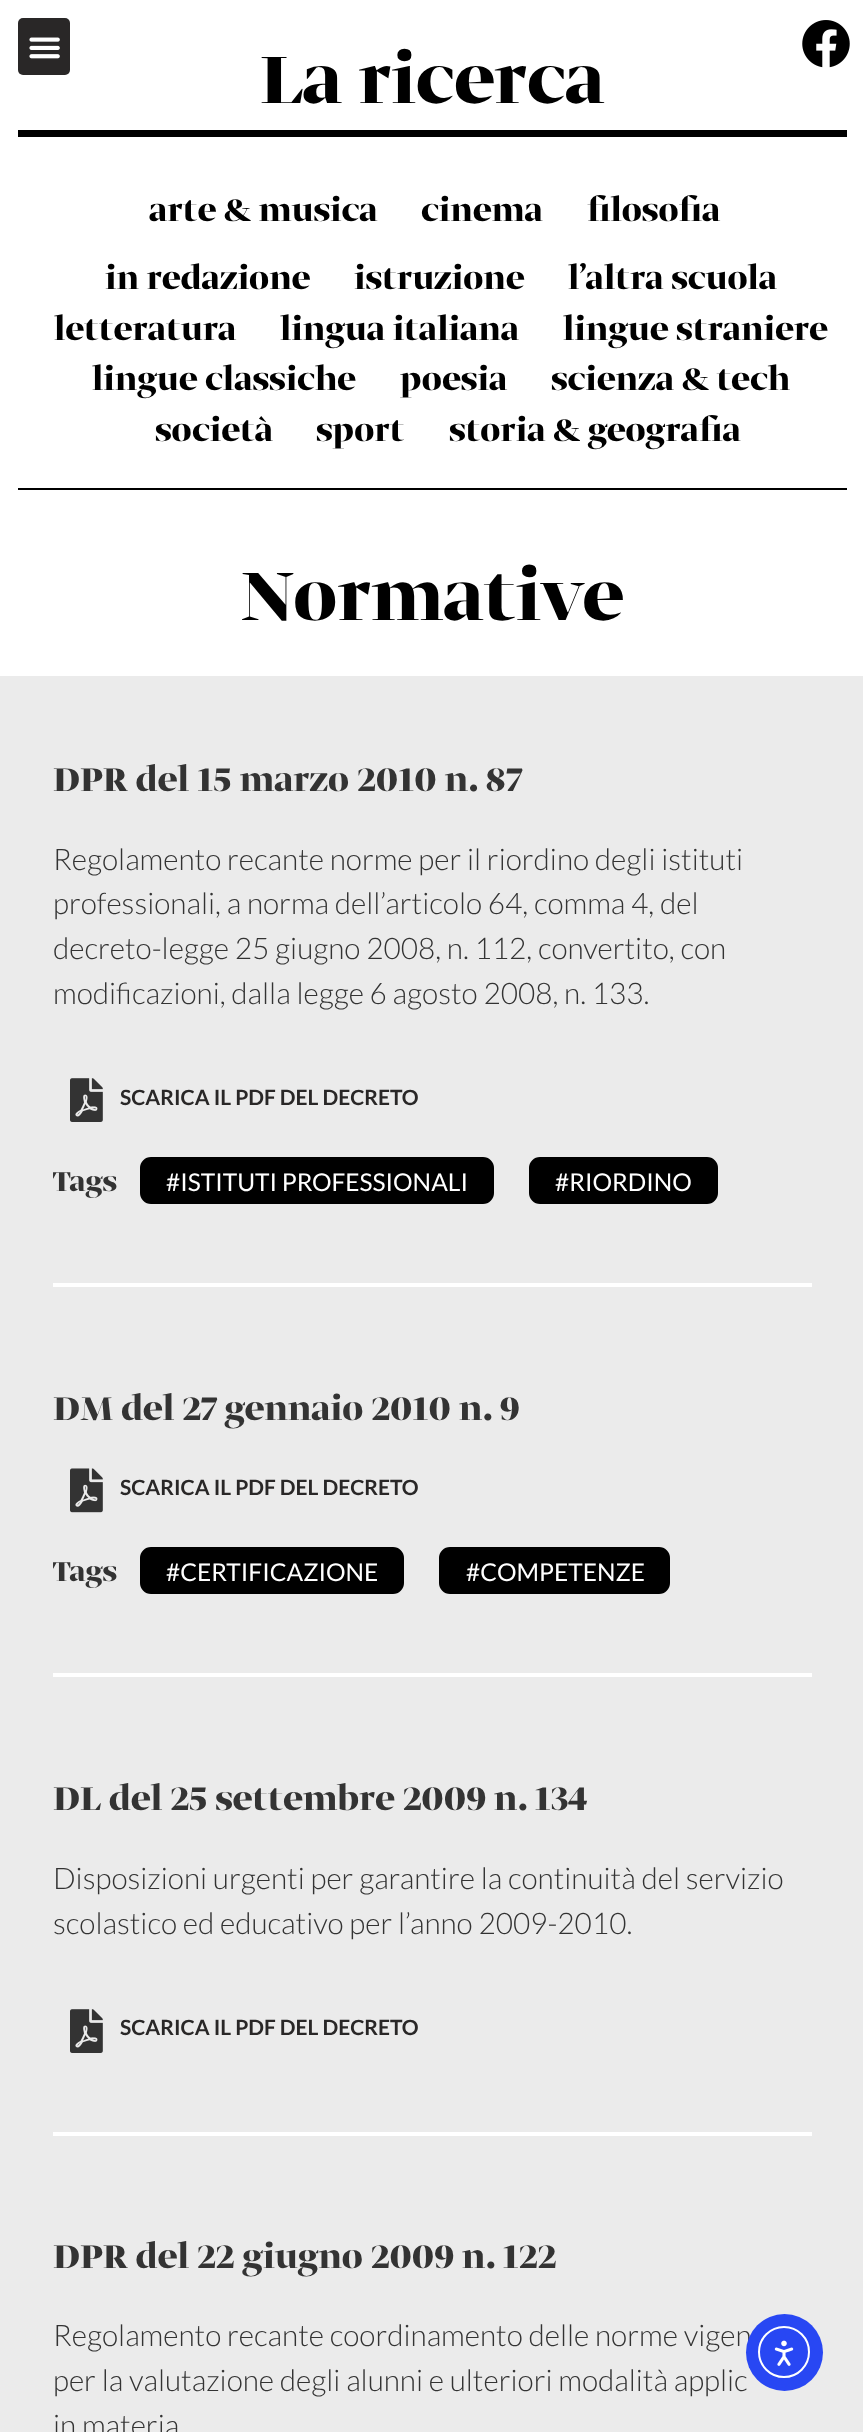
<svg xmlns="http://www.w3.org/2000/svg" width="863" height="2432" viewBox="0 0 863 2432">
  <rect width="100%" height="100%" fill="rgb(235,235,235)"/>
  <rect x="0" y="0" width="863" height="676" fill="rgb(255,255,255)"/>
  <rect x="18" y="18" width="52" height="57" rx="5" fill="rgb(41,39,39)"/>
  <image x="29" y="37" width="31" height="22" href="pic1.png"/>
  <text x="260" y="103" font-family="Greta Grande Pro" font-size="78.75" font-weight="bold" fill="rgb(0,0,0)">La ricerca</text>
  <image x="802" y="20" width="48" height="48" href="pic2.png"/>
  <rect x="18" y="130" width="829" height="7" fill="rgb(0,0,0)"/>
  <rect x="18" y="488" width="829" height="2" fill="rgb(0,0,0)"/>
  <g font-family="Greta Grande Pro" font-size="36.75" font-weight="bold" fill="rgb(0,0,0)">
    <text x="149" y="221">arte &amp; musica</text>
    <text x="421" y="221">cinema</text>
    <text x="587" y="221">filosofia</text>
    <text x="105" y="289">in redazione</text>
    <text x="354" y="289">istruzione</text>
    <text x="568" y="289">l’altra scuola</text>
    <text x="54" y="340">letteratura</text>
    <text x="280" y="340">lingua italiana</text>
    <text x="563" y="340">lingue straniere</text>
    <text x="92" y="390">lingue classiche</text>
    <text x="400" y="390">poesia</text>
    <text x="551" y="390">scienza &amp; tech</text>
    <text x="155" y="441">società</text>
    <text x="316" y="441">sport</text>
    <text x="449" y="441">storia &amp; geografia</text>
  </g>
  <text x="242" y="620" font-family="Greta Grande Pro" font-size="80.5" font-weight="bold" fill="rgb(0,0,0)">Normative</text>
  <text x="53" y="791" font-family="Greta Grande Pro" font-size="38.5" font-weight="bold" fill="rgb(51,51,51)">DPR del 15 marzo 2010 n. 87</text>
  <g font-family="Lato" font-size="29.75" font-weight="300" fill="rgb(51,51,51)">
    <text>
      <tspan x="53" y="870">Regolamento recante norme per il riordino degli istituti</tspan>
      <tspan x="53" y="914">professionali, a norma dell’articolo 64, comma 4, del</tspan>
      <tspan x="53" y="959">decreto-legge 25 giugno 2008, n. 112, convertito, con</tspan>
      <tspan x="53" y="1004">modificazioni, dalla legge 6 agosto 2008, n. 133.</tspan>
    </text>
  </g>
  <image x="70" y="1078" width="33" height="44" href="pic3.png"/>
  <text x="120" y="1105" font-family="Lato" font-size="21" font-weight="bold" fill="rgb(41,39,39)">SCARICA IL PDF DEL DECRETO</text>
  <text x="53" y="1191" font-family="Greta Grande Pro" font-size="32" font-weight="bold" fill="rgb(51,51,51)">Tags</text>
  <rect x="144.5" y="1161.5" width="345" height="38" rx="6.5" fill="rgb(0,0,0)" stroke="rgb(0,0,0)" stroke-width="9"/>
  <text x="166" y="1191" font-family="Lato" font-size="24.5" fill="rgb(255,255,255)">#ISTITUTI PROFESSIONALI</text>
  <rect x="533.5" y="1161.5" width="180" height="38" rx="6.5" fill="rgb(0,0,0)" stroke="rgb(0,0,0)" stroke-width="9"/>
  <text x="555" y="1191" font-family="Lato" font-size="24.5" fill="rgb(255,255,255)">#RIORDINO</text>
  <rect x="53" y="1283" width="759" height="4" fill="rgb(255,255,255)"/>
  <text x="53" y="1420" font-family="Greta Grande Pro" font-size="38.5" font-weight="bold" fill="rgb(51,51,51)">DM del 27 gennaio 2010 n. 9</text>
  <image x="70" y="1468" width="33" height="45" href="pic4.png"/>
  <text x="120" y="1495" font-family="Lato" font-size="21" font-weight="bold" fill="rgb(41,39,39)">SCARICA IL PDF DEL DECRETO</text>
  <text x="53" y="1581" font-family="Greta Grande Pro" font-size="32" font-weight="bold" fill="rgb(51,51,51)">Tags</text>
  <rect x="144.5" y="1551.5" width="255" height="38" rx="6.5" fill="rgb(0,0,0)" stroke="rgb(0,0,0)" stroke-width="9"/>
  <text x="166" y="1581" font-family="Lato" font-size="24.5" fill="rgb(255,255,255)">#CERTIFICAZIONE</text>
  <rect x="443.5" y="1551.5" width="222" height="38" rx="6.5" fill="rgb(0,0,0)" stroke="rgb(0,0,0)" stroke-width="9"/>
  <text x="466" y="1581" font-family="Lato" font-size="24.5" fill="rgb(255,255,255)">#COMPETENZE</text>
  <rect x="53" y="1673" width="759" height="4" fill="rgb(255,255,255)"/>
  <text x="53" y="1810" font-family="Greta Grande Pro" font-size="38.5" font-weight="bold" fill="rgb(51,51,51)">DL del 25 settembre 2009 n. 134</text>
  <g font-family="Lato" font-size="29.75" font-weight="300" fill="rgb(51,51,51)">
    <text>
      <tspan x="53" y="1889">Disposizioni urgenti per garantire la continuità del servizio</tspan>
      <tspan x="53" y="1934">scolastico ed educativo per l’anno 2009-2010.</tspan>
    </text>
  </g>
  <image x="70" y="2009" width="33" height="44" href="pic3.png"/>
  <text x="120" y="2035" font-family="Lato" font-size="21" font-weight="bold" fill="rgb(41,39,39)">SCARICA IL PDF DEL DECRETO</text>
  <rect x="53" y="2132" width="759" height="4" fill="rgb(255,255,255)"/>
  <text x="53" y="2268" font-family="Greta Grande Pro" font-size="38.5" font-weight="bold" fill="rgb(51,51,51)">DPR del 22 giugno 2009 n. 122</text>
  <g font-family="Lato" font-size="29.75" font-weight="300" fill="rgb(51,51,51)">
    <text>
      <tspan x="53" y="2346">Regolamento recante coordinamento delle norme vigen</tspan>
      <tspan x="53" y="2391">per la valutazione degli alunni e ulteriori modalità applic</tspan>
      <tspan x="53" y="2436">in materia</tspan>
    </text>
  </g>
  <circle cx="784.5" cy="2352.5" r="38.5" fill="rgb(40,71,243)"/>
  <circle cx="784" cy="2352" r="25" fill="none" stroke="rgb(255,255,255)" stroke-width="2"/>
  <image x="774" y="2340" width="20" height="26" href="pic5.png"/>
</svg>
